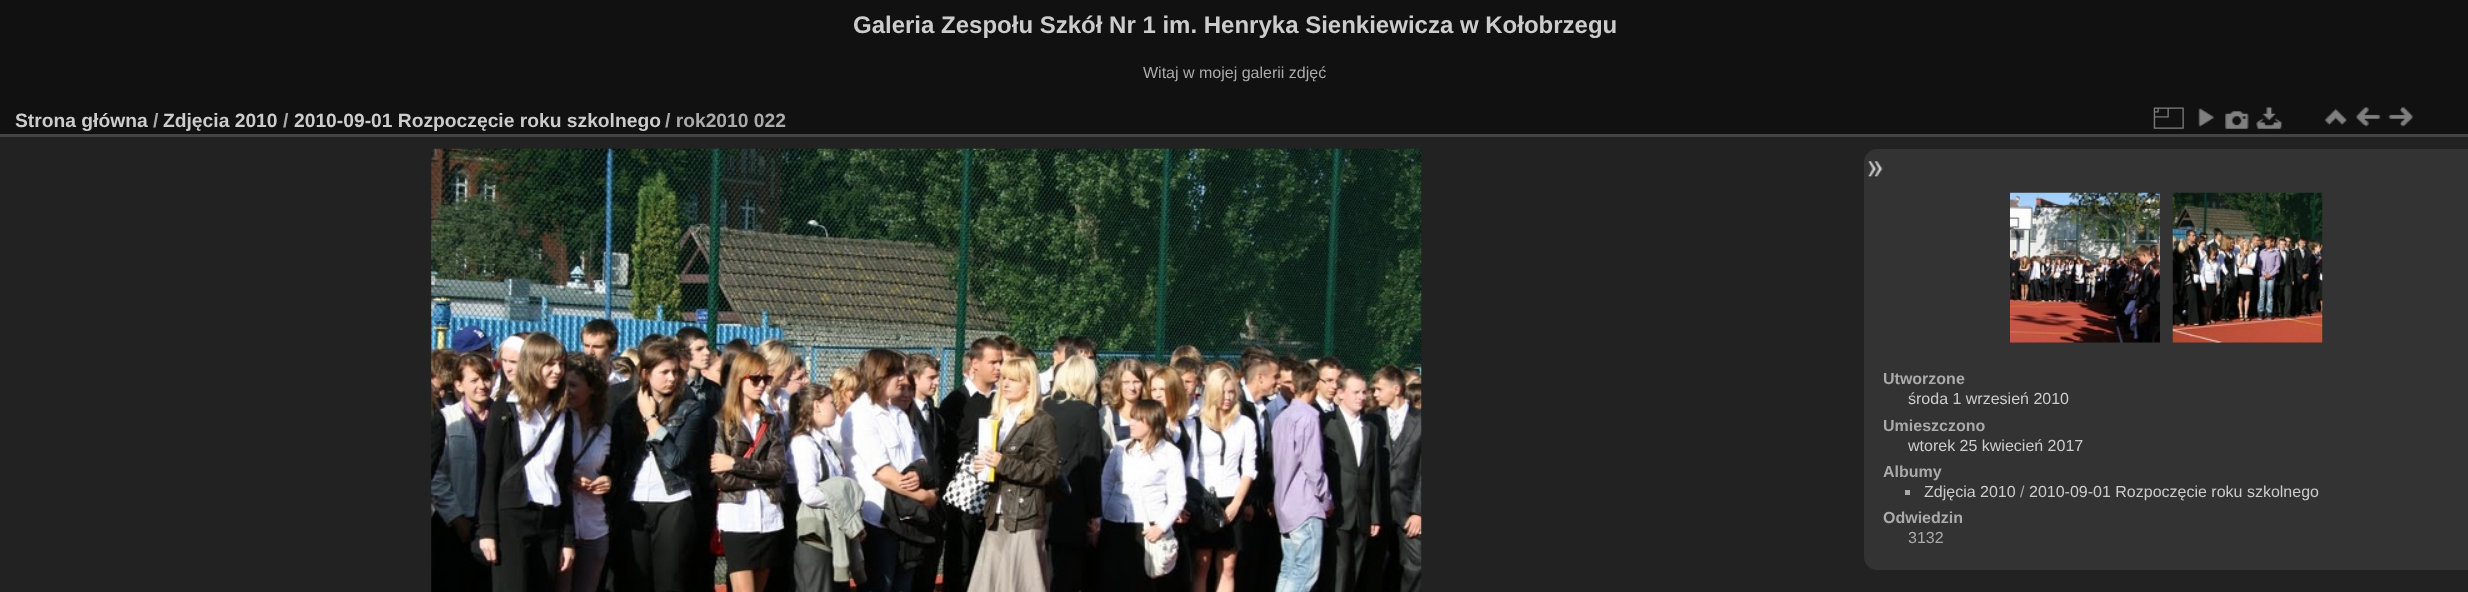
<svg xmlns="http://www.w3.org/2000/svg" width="2468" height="592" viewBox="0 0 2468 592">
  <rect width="100%" height="100%" fill="rgb(17,17,17)"/>
  <text x="853" y="33" font-family="Liberation Sans" font-size="24" font-weight="bold" fill="rgb(204,204,204)">Galeria Zespołu Szkół Nr 1 im. Henryka Sienkiewicza w Kołobrzegu</text>
  <text x="1143" y="78" font-family="Liberation Sans" font-size="16" fill="rgb(170,170,170)">Witaj w mojej galerii zdjęć</text>
  <rect x="0" y="137" width="2468" height="455" fill="rgb(34,34,34)"/>
  <rect x="0" y="134" width="2468" height="3" fill="rgb(68,68,68)"/>
  <text x="15" y="127" font-family="Liberation Sans" font-size="19.25" font-weight="bold" fill="rgb(204,204,204)">Strona główna</text>
  <text x="153" y="127" font-family="Liberation Sans" font-size="19.25" font-weight="bold" fill="rgb(170,170,170)">/</text>
  <text x="163" y="127" font-family="Liberation Sans" font-size="19.25" font-weight="bold" fill="rgb(204,204,204)">Zdjęcia 2010</text>
  <text x="283" y="127" font-family="Liberation Sans" font-size="19.25" font-weight="bold" fill="rgb(170,170,170)">/</text>
  <text x="294" y="127" font-family="Liberation Sans" font-size="19.25" font-weight="bold" fill="rgb(204,204,204)">2010-09-01 Rozpoczęcie roku szkolnego</text>
  <text x="665" y="127" font-family="Liberation Sans" font-size="19.25" font-weight="bold" fill="rgb(170,170,170)">/ rok2010 022</text>
  <image x="2153" y="107" width="31" height="22" href="pic1.png"/>
  <image x="2198" y="108" width="16" height="19" href="pic2.png"/>
  <image x="2225" y="111" width="24" height="18" href="pic3.png"/>
  <image x="2256" y="107" width="27" height="22" href="pic4.png"/>
  <image x="2325" y="108" width="22" height="18" href="pic5.png"/>
  <image x="2356" y="107" width="25" height="20" href="pic6.png"/>
  <image x="2388" y="107" width="25" height="20" href="pic7.png"/>
  <image x="431" y="148" width="991" height="444" href="pic8.png"/>
  <path d="M1877 149H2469V570H1877C1870 570 1864 564 1864 557V162C1864 155 1870 149 1877 149Z" fill="rgb(51,51,51)"/>
  <image x="1868" y="161" width="15" height="16" href="pic9.png"/>
  <image x="2010" y="192" width="150" height="151" href="pic10.png"/>
  <image x="2172" y="192" width="151" height="151" href="pic11.png"/>
  <text x="1883" y="384" font-family="Liberation Sans" font-size="16" font-weight="bold" fill="rgb(170,170,170)">Utworzone</text>
  <text x="1908" y="404" font-family="Liberation Sans" font-size="16" fill="rgb(204,204,204)">środa 1 wrzesień 2010</text>
  <text x="1883" y="431" font-family="Liberation Sans" font-size="16" font-weight="bold" fill="rgb(170,170,170)">Umieszczono</text>
  <text x="1908" y="451" font-family="Liberation Sans" font-size="16" fill="rgb(204,204,204)">wtorek 25 kwiecień 2017</text>
  <text x="1883" y="477" font-family="Liberation Sans" font-size="16" font-weight="bold" fill="rgb(170,170,170)">Albumy</text>
  <rect x="1905" y="490" width="5" height="5" fill="rgb(170,170,170)"/>
  <text x="1924" y="497" font-family="Liberation Sans" font-size="16" fill="rgb(204,204,204)">Zdjęcia 2010</text>
  <text x="2020" y="497" font-family="Liberation Sans" font-size="16" fill="rgb(170,170,170)">/</text>
  <text x="2029" y="497" font-family="Liberation Sans" font-size="16" fill="rgb(204,204,204)">2010-09-01 Rozpoczęcie roku szkolnego</text>
  <text x="1883" y="523" font-family="Liberation Sans" font-size="16" font-weight="bold" fill="rgb(170,170,170)">Odwiedzin</text>
  <text x="1908" y="543" font-family="Liberation Sans" font-size="16" fill="rgb(170,170,170)">3132</text>
</svg>
